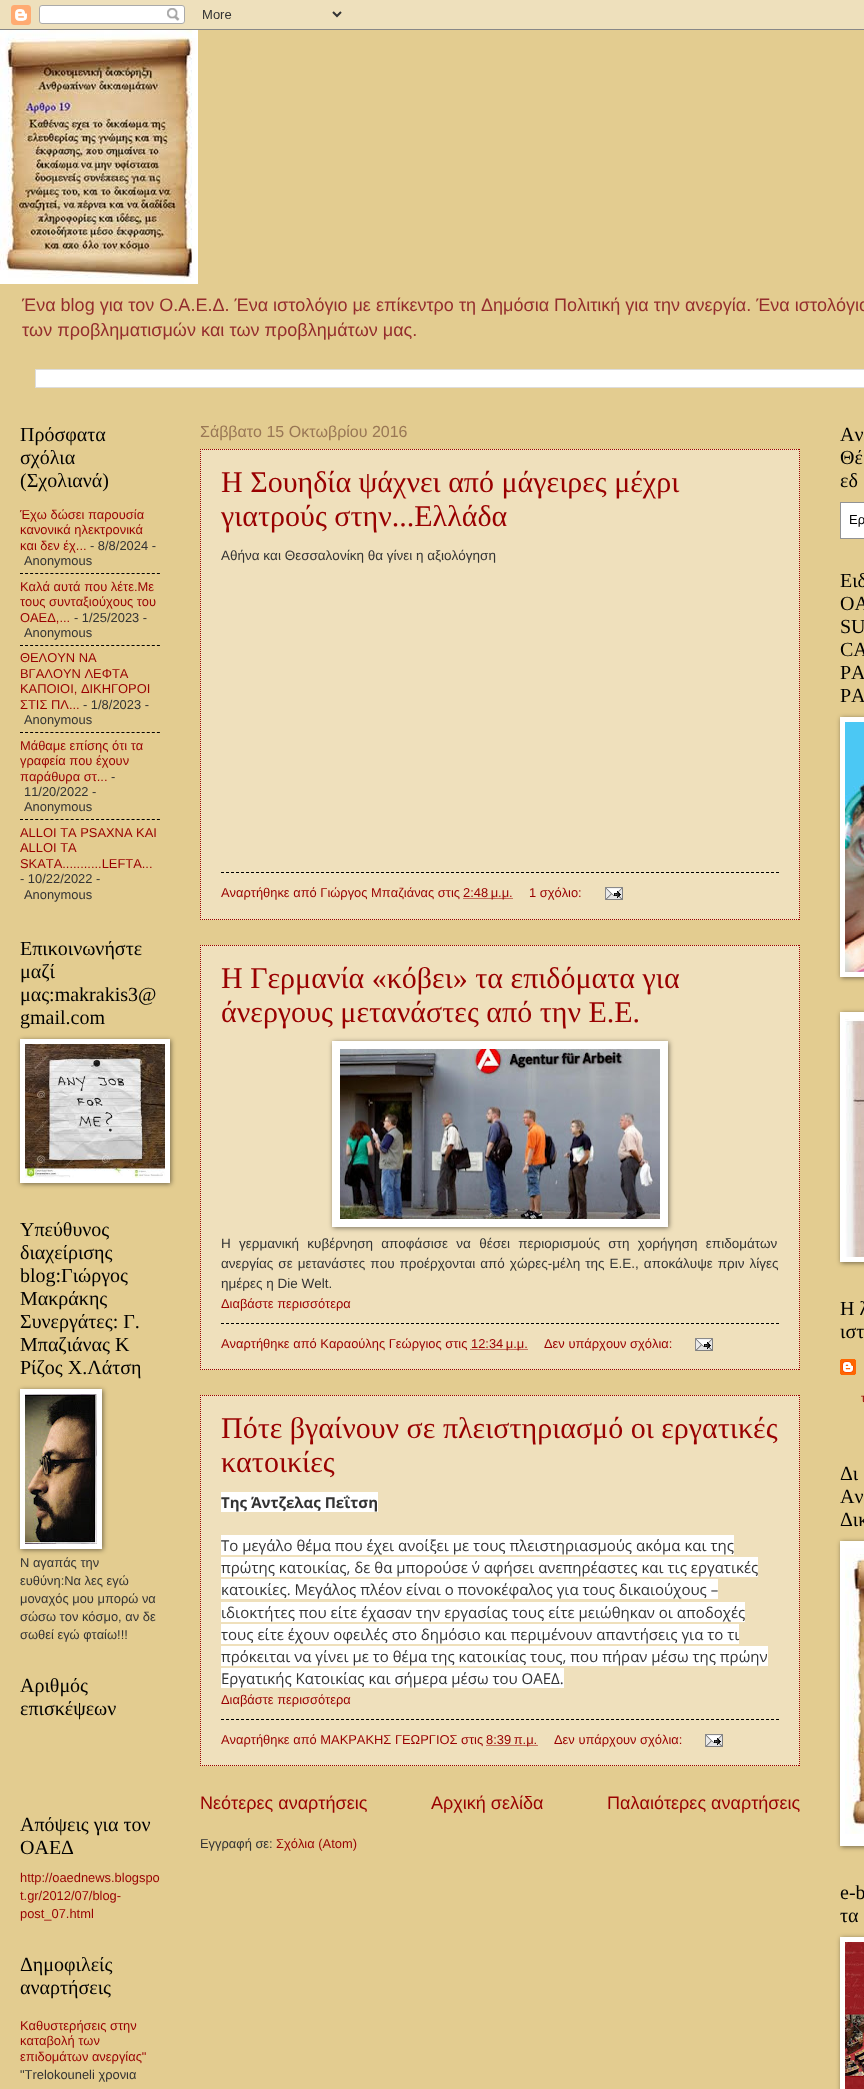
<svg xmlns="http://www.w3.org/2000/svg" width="864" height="2089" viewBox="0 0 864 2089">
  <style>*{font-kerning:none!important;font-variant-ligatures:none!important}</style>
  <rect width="100%" height="100%" fill="rgb(227,204,144)"/>
  <image x="0" y="0" width="864" height="30" href="pic1.png"/>
  <image x="0" y="30" width="198" height="254" href="pic2.png"/>
  <g font-family="Liberation Sans" font-size="18.05" fill="rgb(148,45,45)">
    <text>
      <tspan x="22" y="311">Ένα blog για τον Ο.Α.Ε.Δ. Ένα ιστολόγιο με επίκεντρο τη Δημόσια Πολιτική για την ανεργία. Ένα ιστολόγιο</tspan>
      <tspan x="22" y="336">των προβληματισμών και των προβλημάτων μας.</tspan>
    </text>
  </g>
  <rect x="35.5" y="369.5" width="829" height="18" fill="rgb(255,255,255)" stroke="rgb(221,221,221)"/>
  <g font-family="Liberation Serif" font-size="20" fill="rgb(0,0,0)">
    <text>
      <tspan x="20" y="441">Πρόσφατα</tspan>
      <tspan x="20" y="464">σχόλια</tspan>
      <tspan x="20" y="487">(Σχολιανά)</tspan>
    </text>
  </g>
  <g font-family="Liberation Sans" font-size="12.9" fill="rgb(153,0,0)">
    <text>
      <tspan x="20" y="519">Έχω δώσει παρουσία</tspan>
      <tspan x="20" y="534">κανονικά ηλεκτρονικά</tspan>
      <tspan x="20" y="550">και δεν έχ...</tspan>
    </text>
  </g>
  <g font-family="Liberation Sans" font-size="12.9" fill="rgb(51,51,51)">
    <text x="90" y="550">- 8/8/2024 -</text>
    <text x="24" y="565">Anonymous</text>
  </g>
  <path d="M20 573.5H160" fill="none" stroke="rgb(0,0,0)" stroke-dasharray="3 2.07"/>
  <g font-family="Liberation Sans" font-size="12.9" fill="rgb(153,0,0)">
    <text>
      <tspan x="20" y="591">Καλά αυτά που λέτε.Με</tspan>
      <tspan x="20" y="606">τους συνταξιούχους του</tspan>
      <tspan x="20" y="622">ΟΑΕΔ,...</tspan>
    </text>
  </g>
  <g font-family="Liberation Sans" font-size="12.9" fill="rgb(51,51,51)">
    <text x="74" y="622">- 1/25/2023 -</text>
    <text x="24" y="637">Anonymous</text>
  </g>
  <path d="M20 645.5H160" fill="none" stroke="rgb(0,0,0)" stroke-dasharray="3 2.07"/>
  <g font-family="Liberation Sans" font-size="12.9" fill="rgb(153,0,0)">
    <text>
      <tspan x="20" y="662">ΘΕΛΟΥΝ ΝΑ</tspan>
      <tspan x="20" y="678">ΒΓΑΛΟΥΝ ΛΕΦΤΑ</tspan>
      <tspan x="20" y="693">ΚΑΠΟΙΟΙ, ΔΙΚΗΓΟΡΟΙ</tspan>
      <tspan x="20" y="709">ΣΤΙΣ ΠΛ...</tspan>
    </text>
  </g>
  <g font-family="Liberation Sans" font-size="12.9" fill="rgb(51,51,51)">
    <text x="83" y="709">- 1/8/2023 -</text>
    <text x="24" y="724">Anonymous</text>
  </g>
  <path d="M20 732.5H160" fill="none" stroke="rgb(0,0,0)" stroke-dasharray="3 2.07"/>
  <g font-family="Liberation Sans" font-size="12.9" fill="rgb(153,0,0)">
    <text>
      <tspan x="20" y="750">Μάθαμε επίσης ότι τα</tspan>
      <tspan x="20" y="765">γραφεία που έχουν</tspan>
      <tspan x="20" y="781">παράθυρα στ...</tspan>
    </text>
  </g>
  <g font-family="Liberation Sans" font-size="12.9" fill="rgb(51,51,51)">
    <text x="111" y="781">-</text>
    <text>
      <tspan x="24" y="796">11/20/2022 -</tspan>
      <tspan x="24" y="811">Anonymous</tspan>
    </text>
  </g>
  <path d="M20 819.5H160" fill="none" stroke="rgb(0,0,0)" stroke-dasharray="3 2.07"/>
  <g font-family="Liberation Sans" font-size="12.9" fill="rgb(153,0,0)">
    <text>
      <tspan x="20" y="837">ALLOI TA PSAXNA KAI</tspan>
      <tspan x="20" y="852">ALLOI TA</tspan>
      <tspan x="20" y="868">SKATA...........LEFTA...</tspan>
    </text>
  </g>
  <g font-family="Liberation Sans" font-size="12.9" fill="rgb(51,51,51)">
    <text x="20" y="883">- 10/22/2022 -</text>
    <text x="24" y="899">Anonymous</text>
  </g>
  <g font-family="Liberation Serif" font-size="20" fill="rgb(0,0,0)">
    <text>
      <tspan x="20" y="955">Επικοινωνήστε</tspan>
      <tspan x="20" y="978">μαζί</tspan>
      <tspan x="20" y="1001">μας:makrakis3@</tspan>
      <tspan x="20" y="1024">gmail.com</tspan>
    </text>
  </g>
  <rect x="21" y="1040" width="150" height="144" fill="rgba(0,0,0,0.5)" filter="blur(2.5px)"/>
  <rect x="20" y="1039" width="150" height="144" fill="rgb(255,255,255)"/>
  <image x="25" y="1044" width="140" height="134" href="pic3.png"/>
  <g font-family="Liberation Serif" font-size="20" fill="rgb(0,0,0)">
    <text>
      <tspan x="20" y="1236">Υπεύθυνος</tspan>
      <tspan x="20" y="1259">διαχείρισης</tspan>
      <tspan x="20" y="1282">blog:Γιώργος</tspan>
      <tspan x="20" y="1305">Μακράκης</tspan>
      <tspan x="20" y="1328">Συνεργάτες: Γ.</tspan>
      <tspan x="20" y="1351">Μπαζιάνας Κ</tspan>
      <tspan x="20" y="1374">Ρίζος Χ.Λάτση</tspan>
    </text>
  </g>
  <rect x="21" y="1390" width="82" height="160" fill="rgba(0,0,0,0.5)" filter="blur(2.5px)"/>
  <rect x="20" y="1389" width="82" height="160" fill="rgb(255,255,255)"/>
  <image x="25" y="1394" width="72" height="150" href="pic4.png"/>
  <g font-family="Liberation Sans" font-size="12.9" fill="rgb(51,51,51)">
    <text>
      <tspan x="20" y="1567">Ν αγαπάς την</tspan>
      <tspan x="20" y="1585">ευθύνη:Να λες εγώ</tspan>
      <tspan x="20" y="1603">μοναχός μου μπορώ να</tspan>
      <tspan x="20" y="1621">σώσω τον κόσμο, αν δε</tspan>
      <tspan x="20" y="1639">σωθεί εγώ φταίω!!!</tspan>
    </text>
  </g>
  <g font-family="Liberation Serif" font-size="20" fill="rgb(0,0,0)">
    <text>
      <tspan x="20" y="1692">Αριθμός</tspan>
      <tspan x="20" y="1715">επισκέψεων</tspan>
    </text>
    <text>
      <tspan x="20" y="1831">Απόψεις για τον</tspan>
      <tspan x="20" y="1854">ΟΑΕΔ</tspan>
    </text>
  </g>
  <g font-family="Liberation Sans" font-size="12.9" fill="rgb(153,0,0)">
    <text>
      <tspan x="20" y="1882">http://oaednews.blogspo</tspan>
      <tspan x="20" y="1900">t.gr/2012/07/blog-</tspan>
      <tspan x="20" y="1918">post_07.html</tspan>
    </text>
  </g>
  <g font-family="Liberation Serif" font-size="20" fill="rgb(0,0,0)">
    <text>
      <tspan x="20" y="1971">Δημοφιλείς</tspan>
      <tspan x="20" y="1994">αναρτήσεις</tspan>
    </text>
  </g>
  <g font-family="Liberation Sans" font-size="12.9" fill="rgb(153,0,0)">
    <text>
      <tspan x="20" y="2030">Καθυστερήσεις στην</tspan>
      <tspan x="20" y="2045">καταβολή των</tspan>
      <tspan x="20" y="2061">επιδομάτων ανεργίας"</tspan>
    </text>
  </g>
  <text x="20" y="2079" font-family="Liberation Sans" font-size="12.9" fill="rgb(51,51,51)">"Trelokouneli χρονια</text>
  <text x="200" y="437" font-family="Liberation Sans" font-size="16" fill="rgb(153,119,85)">Σάββατο 15 Οκτωβρίου 2016</text>
  <rect x="200" y="449" width="600" height="471" fill="rgb(239,224,188)"/>
  <path d="M200 449.5H800" fill="none" stroke="rgb(153,0,0)" stroke-dasharray="1 1"/>
  <path d="M799.5 449V920" fill="none" stroke="rgb(153,0,0)" stroke-dasharray="1 1"/>
  <path d="M200 919.5H800" fill="none" stroke="rgb(153,0,0)" stroke-dasharray="1 1"/>
  <path d="M200.5 449V920" fill="none" stroke="rgb(153,0,0)" stroke-dasharray="1 1"/>
  <g font-family="Liberation Serif" font-size="30" fill="rgb(153,0,0)">
    <text>
      <tspan x="221" y="492">Η Σουηδία ψάχνει από μάγειρες μέχρι</tspan>
      <tspan x="221" y="526">γιατρούς στην...Ελλάδα</tspan>
    </text>
  </g>
  <text x="221" y="560" font-family="Liberation Sans" font-size="13.5" fill="rgb(51,51,51)">Αθήνα και Θεσσαλονίκη θα γίνει η αξιολόγηση</text>
  <path d="M221 872.5H779" fill="none" stroke="rgb(0,0,0)" stroke-dasharray="3 2"/>
  <text x="221" y="897" font-family="Liberation Sans" font-size="12.9" fill="rgb(153,0,0)">Αναρτήθηκε από Γιώργος Μπαζιάνας στις</text>
  <path d="M463.5 898.5H513" fill="none" stroke="rgb(153,0,0)" stroke-dasharray="1 1"/>
  <g font-family="Liberation Sans" font-size="12.9" fill="rgb(153,0,0)">
    <text x="463" y="897">2:48 μ.μ.</text>
    <text x="529" y="897">1 σχόλιο:</text>
  </g>
  <image x="605" y="887" width="18" height="13" href="pic5.png"/>
  <rect x="200" y="945" width="600" height="425" fill="rgb(239,224,188)"/>
  <path d="M200 945.5H800" fill="none" stroke="rgb(153,0,0)" stroke-dasharray="1 1"/>
  <path d="M799.5 945V1370" fill="none" stroke="rgb(153,0,0)" stroke-dasharray="1 1"/>
  <path d="M200 1369.5H800" fill="none" stroke="rgb(153,0,0)" stroke-dasharray="1 1"/>
  <path d="M200.5 945V1370" fill="none" stroke="rgb(153,0,0)" stroke-dasharray="1 1"/>
  <g font-family="Liberation Serif" font-size="30" fill="rgb(153,0,0)">
    <text>
      <tspan x="221" y="988">Η Γερμανία «κόβει» τα επιδόματα για</tspan>
      <tspan x="221" y="1022">άνεργους μετανάστες από την Ε.Ε.</tspan>
    </text>
  </g>
  <rect x="333" y="1042" width="336" height="186" fill="rgba(0,0,0,0.5)" filter="blur(2.5px)"/>
  <rect x="332" y="1041" width="336" height="186" fill="rgb(255,255,255)"/>
  <image x="340" y="1049" width="320" height="170" href="pic6.png"/>
  <g font-family="Liberation Sans" font-size="13.5" fill="rgb(51,51,51)">
    <text>
      <tspan x="221" y="1248" word-spacing="4.5">Η γερμανική κυβέρνηση αποφάσισε να θέσει περιορισμούς στη χορήγηση επιδομάτων</tspan>
      <tspan x="221" y="1268" word-spacing="1.25">ανεργίας σε μετανάστες που προέρχονται από χώρες-μέλη της Ε.Ε., αποκάλυψε πριν λίγες</tspan>
      <tspan x="221" y="1288">ημέρες η Die Welt.</tspan>
    </text>
  </g>
  <text x="221" y="1308" font-family="Liberation Sans" font-size="12.9" fill="rgb(153,0,0)">Διαβάστε περισσότερα</text>
  <path d="M221 1323.5H779" fill="none" stroke="rgb(0,0,0)" stroke-dasharray="3 2"/>
  <text x="221" y="1348" font-family="Liberation Sans" font-size="12.9" fill="rgb(153,0,0)">Αναρτήθηκε από Καραούλης Γεώργιος στις</text>
  <path d="M470.5 1349.5H527.5" fill="none" stroke="rgb(153,0,0)" stroke-dasharray="1 1"/>
  <g font-family="Liberation Sans" font-size="12.9" fill="rgb(153,0,0)">
    <text x="471" y="1348">12:34 μ.μ.</text>
    <text x="544" y="1348">Δεν υπάρχουν σχόλια:</text>
  </g>
  <image x="695" y="1338" width="18" height="13" href="pic5.png"/>
  <rect x="200" y="1395" width="600" height="371" fill="rgb(239,224,188)"/>
  <path d="M200 1395.5H800" fill="none" stroke="rgb(153,0,0)" stroke-dasharray="1 1"/>
  <path d="M799.5 1395V1766" fill="none" stroke="rgb(153,0,0)" stroke-dasharray="1 1"/>
  <path d="M200 1765.5H800" fill="none" stroke="rgb(153,0,0)" stroke-dasharray="1 1"/>
  <path d="M200.5 1395V1766" fill="none" stroke="rgb(153,0,0)" stroke-dasharray="1 1"/>
  <g font-family="Liberation Serif" font-size="30" fill="rgb(153,0,0)">
    <text>
      <tspan x="221" y="1438">Πότε βγαίνουν σε πλειστηριασμό οι εργατικές</tspan>
      <tspan x="221" y="1472">κατοικίες</tspan>
    </text>
  </g>
  <rect x="221" y="1492" width="157" height="20" fill="rgb(255,255,255)"/>
  <text x="221" y="1508" font-family="Open Sans" font-size="15" font-weight="bold" fill="rgb(51,51,51)">Της Άντζελας Πεΐτση</text>
  <rect x="221" y="1535" width="513" height="20" fill="rgb(255,255,255)"/>
  <text x="221" y="1551" font-family="Open Sans" font-size="15" fill="rgb(51,51,51)">Το μεγάλο θέμα που έχει ανοίξει με τους πλειστηριασμούς ακόμα και της</text>
  <rect x="221" y="1557" width="537" height="20" fill="rgb(255,255,255)"/>
  <text x="221" y="1573" font-family="Open Sans" font-size="15" fill="rgb(51,51,51)">πρώτης κατοικίας, δε θα μπορούσε ν΄ αφήσει ανεπηρέαστες και τις εργατικές</text>
  <rect x="221" y="1579" width="497" height="20" fill="rgb(255,255,255)"/>
  <text x="221" y="1595" font-family="Open Sans" font-size="15" fill="rgb(51,51,51)">κατοικίες. Μεγάλος πλέον είναι ο πονοκέφαλος για τους δικαιούχους –</text>
  <rect x="221" y="1602" width="524" height="20" fill="rgb(255,255,255)"/>
  <text x="221" y="1618" font-family="Open Sans" font-size="15" fill="rgb(51,51,51)">ιδιοκτήτες που είτε έχασαν την εργασίας τους είτε μειώθηκαν οι αποδοχές</text>
  <rect x="221" y="1624" width="518" height="20" fill="rgb(255,255,255)"/>
  <text x="221" y="1640" font-family="Open Sans" font-size="15" fill="rgb(51,51,51)">τους είτε έχουν οφειλές στο δημόσιο και περιμένουν απαντήσεις για το τι</text>
  <rect x="221" y="1646" width="547" height="20" fill="rgb(255,255,255)"/>
  <text x="221" y="1662" font-family="Open Sans" font-size="15" fill="rgb(51,51,51)">πρόκειται να γίνει με το θέμα της κατοικίας τους, που πήραν μέσω της πρώην</text>
  <rect x="221" y="1668" width="343" height="20" fill="rgb(255,255,255)"/>
  <text x="221" y="1684" font-family="Open Sans" font-size="15" fill="rgb(51,51,51)">Εργατικής Κατοικίας και σήμερα μέσω του ΟΑΕΔ.</text>
  <text x="221" y="1704" font-family="Liberation Sans" font-size="12.9" fill="rgb(153,0,0)">Διαβάστε περισσότερα</text>
  <path d="M221 1719.5H779" fill="none" stroke="rgb(0,0,0)" stroke-dasharray="3 2"/>
  <text x="221" y="1744" font-family="Liberation Sans" font-size="12.9" fill="rgb(153,0,0)">Αναρτήθηκε από ΜΑΚΡΑΚΗΣ ΓΕΩΡΓΙΟΣ στις</text>
  <path d="M486.5 1745.5H537.5" fill="none" stroke="rgb(153,0,0)" stroke-dasharray="1 1"/>
  <g font-family="Liberation Sans" font-size="12.9" fill="rgb(153,0,0)">
    <text x="486" y="1744">8:39 π.μ.</text>
    <text x="554" y="1744">Δεν υπάρχουν σχόλια:</text>
  </g>
  <image x="705" y="1734" width="18" height="13" href="pic5.png"/>
  <g font-family="Liberation Sans" font-size="18.05" fill="rgb(153,0,0)">
    <text x="200" y="1809">Νεότερες αναρτήσεις</text>
    <text x="431" y="1809">Αρχική σελίδα</text>
    <text x="607" y="1809">Παλαιότερες αναρτήσεις</text>
  </g>
  <text x="200" y="1848" font-family="Liberation Sans" font-size="12.9" fill="rgb(51,51,51)">Εγγραφή σε:</text>
  <text x="276" y="1848" font-family="Liberation Sans" font-size="12.9" fill="rgb(153,0,0)">Σχόλια (Atom)</text>
  <g font-family="Liberation Serif" font-size="20" fill="rgb(0,0,0)">
    <text>
      <tspan x="840" y="441">Αν</tspan>
      <tspan x="840" y="464">Θέ</tspan>
      <tspan x="840" y="487">εδ</tspan>
    </text>
  </g>
  <rect x="840.5" y="502.5" width="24" height="36" fill="rgb(255,255,255)" stroke="rgb(145,146,148)"/>
  <text x="849" y="524" font-family="Liberation Sans" font-size="13" fill="rgb(0,0,0)">Ερ</text>
  <g font-family="Liberation Serif" font-size="20" fill="rgb(0,0,0)">
    <text>
      <tspan x="840" y="587">Ειδ</tspan>
      <tspan x="840" y="610">ΟΑ</tspan>
      <tspan x="840" y="633">SU</tspan>
      <tspan x="840" y="656">CA</tspan>
      <tspan x="840" y="679">PA</tspan>
      <tspan x="840" y="702">PA</tspan>
    </text>
  </g>
  <rect x="841" y="718" width="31" height="260" fill="rgba(0,0,0,0.5)" filter="blur(2.5px)"/>
  <rect x="840" y="717" width="24" height="260" fill="rgb(255,255,255)"/>
  <image x="845" y="722" width="19" height="250" href="pic7.png"/>
  <rect x="841" y="1013" width="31" height="250" fill="rgba(0,0,0,0.5)" filter="blur(2.5px)"/>
  <rect x="840" y="1012" width="24" height="250" fill="rgb(255,255,255)"/>
  <image x="845" y="1019" width="19" height="238" href="pic8.png"/>
  <g font-family="Liberation Serif" font-size="20" fill="rgb(0,0,0)">
    <text>
      <tspan x="840" y="1315">Η λ</tspan>
      <tspan x="840" y="1338">ιστ</tspan>
    </text>
  </g>
  <image x="840" y="1359" width="16" height="16" href="pic9.png"/>
  <text x="861" y="1402" font-family="Liberation Sans" font-size="12" fill="rgb(153,0,0)">τ</text>
  <g font-family="Liberation Serif" font-size="20" fill="rgb(0,0,0)">
    <text>
      <tspan x="840" y="1480">Δι</tspan>
      <tspan x="840" y="1503">Αν</tspan>
      <tspan x="840" y="1526">Δικ</tspan>
    </text>
  </g>
  <rect x="841" y="1542" width="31" height="305" fill="rgba(0,0,0,0.5)" filter="blur(2.5px)"/>
  <rect x="840" y="1541" width="24" height="305" fill="rgb(255,255,255)"/>
  <image x="845" y="1548" width="19" height="286" href="pic10.png"/>
  <g font-family="Liberation Serif" font-size="20" fill="rgb(0,0,0)">
    <text>
      <tspan x="840" y="1899">e-b</tspan>
      <tspan x="840" y="1922">τα</tspan>
    </text>
  </g>
  <rect x="841" y="1938" width="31" height="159" fill="rgba(0,0,0,0.5)" filter="blur(2.5px)"/>
  <rect x="840" y="1937" width="24" height="152" fill="rgb(255,255,255)"/>
  <image x="845" y="1942" width="19" height="147" href="pic11.png"/>
</svg>
